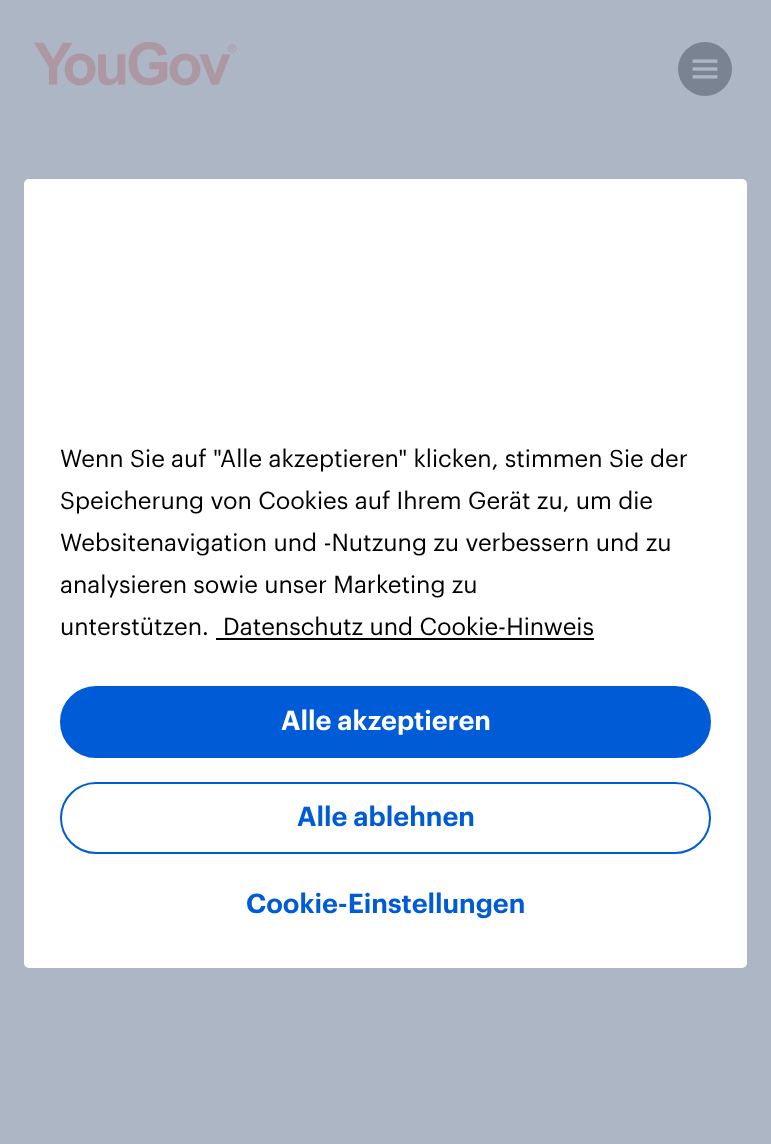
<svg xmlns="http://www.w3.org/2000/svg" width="771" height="1144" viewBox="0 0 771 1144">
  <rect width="100%" height="100%" fill="rgb(173,182,197)"/>
  <image x="34" y="42" width="203" height="44" href="pic1.png"/>
  <circle cx="705" cy="69" r="27" fill="rgb(122,131,146)"/>
  <image x="692" y="59" width="26" height="20" href="pic2.png"/>
  <rect x="24" y="179" width="723" height="789" rx="5" fill="rgb(255,255,255)"/>
  <g font-family="Graphik" font-size="24" fill="rgb(0,0,0)">
    <text>
      <tspan x="60" y="467">Wenn Sie auf "Alle akzeptieren" klicken, stimmen Sie der</tspan>
      <tspan x="60" y="509">Speicherung von Cookies auf Ihrem Gerät zu, um die</tspan>
      <tspan x="60" y="551">Websitenavigation und -Nutzung zu verbessern und zu</tspan>
      <tspan x="60" y="593">analysieren sowie unser Marketing zu</tspan>
      <tspan x="60" y="635">unterstützen.</tspan>
    </text>
    <text x="223" y="635">Datenschutz und Cookie-Hinweis</text>
  </g>
  <rect x="216" y="638" width="378" height="2" fill="rgb(0,0,0)"/>
  <rect x="61" y="687" width="649" height="70" rx="35" fill="rgb(0,91,215)" stroke="rgb(0,91,215)" stroke-width="2"/>
  <text x="281" y="730" font-family="Graphik" font-size="27" font-weight="600" fill="rgb(255,255,255)">Alle akzeptieren</text>
  <rect x="61" y="783" width="649" height="70" rx="35" fill="none" stroke="rgb(0,91,215)" stroke-width="2"/>
  <g font-family="Graphik" font-size="27" font-weight="600" fill="rgb(0,91,215)">
    <text x="297" y="826">Alle ablehnen</text>
    <text x="246" y="913">Cookie-Einstellungen</text>
  </g>
</svg>
